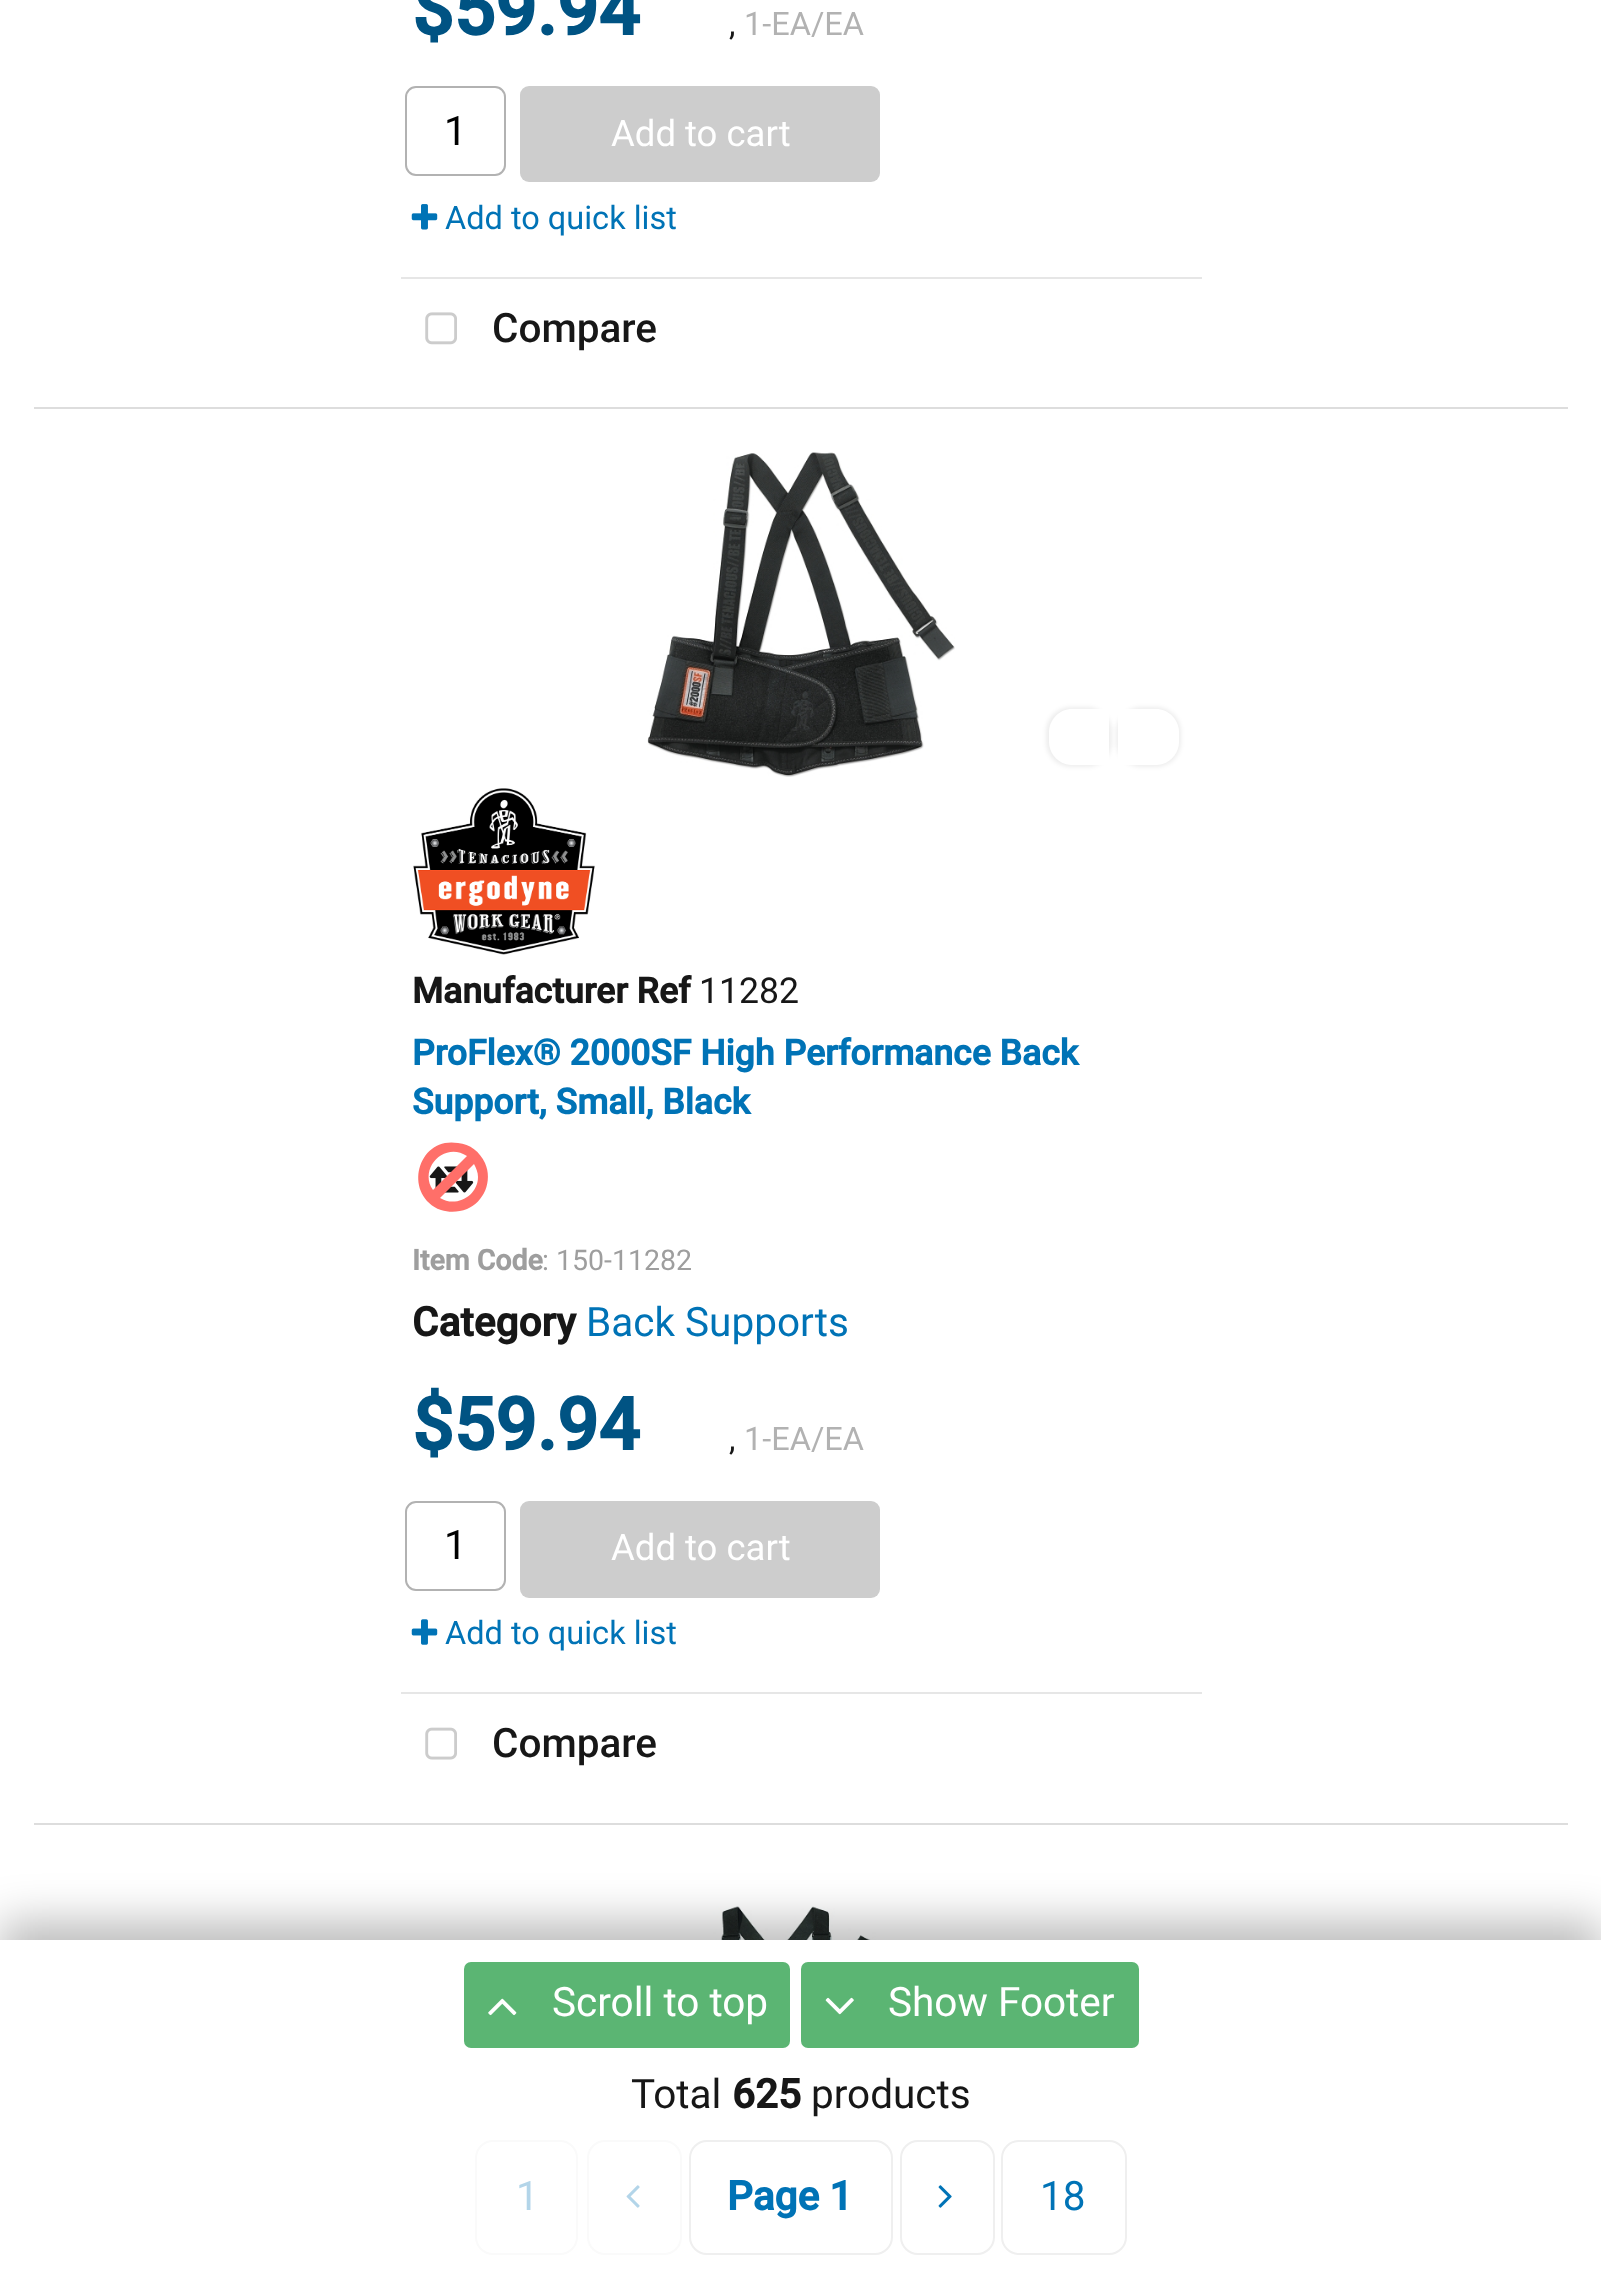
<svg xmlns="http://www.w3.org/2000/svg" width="1601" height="2275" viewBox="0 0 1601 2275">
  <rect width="100%" height="100%" fill="rgb(255,255,255)"/>
  <text x="412" y="35" font-family="Roboto" font-size="73" font-weight="bold" fill="rgb(0,83,131)">$59.94</text>
  <text x="729" y="35" font-family="Roboto" font-size="32.5" fill="rgb(23,23,23)">,</text>
  <text x="744" y="35" font-family="Roboto" font-size="32.5" fill="rgb(178,178,178)">1-EA/EA</text>
  <rect x="406" y="87" width="99" height="88" rx="10" fill="none" stroke="rgb(178,178,178)" stroke-width="2"/>
  <text x="444" y="145" font-family="Roboto" font-size="40.5" fill="rgb(0,0,0)">1</text>
  <rect x="520" y="86" width="360" height="96" rx="9" fill="rgb(205,205,205)"/>
  <text x="611" y="146" font-family="Roboto" font-size="36.5" fill="rgb(255,255,255)">Add to cart</text>
  <image x="411" y="204" width="27" height="26" href="pic1.png"/>
  <text x="445" y="229" font-family="Roboto" font-size="32.5" fill="rgb(0,115,182)">Add to quick list</text>
  <rect x="401" y="277" width="801" height="2" fill="rgb(230,230,230)"/>
  <image x="425" y="312" width="32" height="33" href="pic2.png"/>
  <text x="492" y="342" font-family="Roboto" font-size="40.5" font-weight="500" fill="rgb(23,23,23)">Compare</text>
  <rect x="34" y="407" width="1534" height="2" fill="rgb(221,221,221)"/>
  <image x="647" y="452" width="308" height="325" href="pic3.png"/>
  <rect x="1046" y="707" width="66" height="60" rx="25" fill="rgba(0,0,0,0.07)" filter="blur(2px)"/>
  <path d="M1072 709H1109V765H1072C1059.5 765 1049 754.5 1049 742V732C1049 719.5 1059.5 709 1072 709Z" fill="rgb(255,255,255)"/>
  <rect x="1116" y="707" width="65" height="60" rx="25" fill="rgba(0,0,0,0.07)" filter="blur(2px)"/>
  <path d="M1118 709H1156C1168.5 709 1179 719.5 1179 732V742C1179 754.5 1168.5 765 1156 765H1118Z" fill="rgb(255,255,255)"/>
  <image x="413" y="788" width="182" height="167" href="pic4.png"/>
  <text x="412" y="1003" font-family="Roboto" font-size="35.6" font-weight="bold" fill="rgb(23,23,23)">Manufacturer Ref</text>
  <text x="699" y="1003" font-family="Roboto" font-size="35.6" fill="rgb(23,23,23)">11282</text>
  <g font-family="Roboto" font-size="35.6" font-weight="bold" fill="rgb(0,115,182)">
    <text>
      <tspan x="412" y="1065">ProFlex® 2000SF High Performance Back</tspan>
      <tspan x="412" y="1114">Support, Small, Black</tspan>
    </text>
  </g>
  <image x="429" y="1166" width="45" height="27" href="pic5.png"/>
  <path d="M478 1177C478 1172 476 1168 474 1164L440 1198C456 1208 478 1196 478 1177ZM433 1190L467 1156C445 1141 418 1168 433 1190ZM485 1163C493 1181 484 1202 467 1209C459 1212 450 1213 441 1210C402 1195 417 1136 458 1143C470 1144 480 1152 485 1163Z" fill="rgb(255,111,105)"/>
  <text x="412" y="1270" font-family="Roboto" font-size="28.5" font-weight="bold" fill="rgb(158,158,158)">Item Code</text>
  <text x="542" y="1270" font-family="Roboto" font-size="28.5" fill="rgb(158,158,158)">: 150-11282</text>
  <text x="412" y="1336" font-family="Roboto" font-size="40.5" font-weight="bold" fill="rgb(23,23,23)">Category</text>
  <text x="586" y="1336" font-family="Roboto" font-size="40.5" fill="rgb(0,115,182)">Back Supports</text>
  <text x="412" y="1450" font-family="Roboto" font-size="73" font-weight="bold" fill="rgb(0,83,131)">$59.94</text>
  <text x="729" y="1450" font-family="Roboto" font-size="32.5" fill="rgb(23,23,23)">,</text>
  <text x="744" y="1450" font-family="Roboto" font-size="32.5" fill="rgb(178,178,178)">1-EA/EA</text>
  <rect x="406" y="1502" width="99" height="88" rx="10" fill="none" stroke="rgb(178,178,178)" stroke-width="2"/>
  <text x="444" y="1559" font-family="Roboto" font-size="40.5" fill="rgb(0,0,0)">1</text>
  <rect x="520" y="1501" width="360" height="97" rx="9" fill="rgb(205,205,205)"/>
  <text x="611" y="1560" font-family="Roboto" font-size="36.5" fill="rgb(255,255,255)">Add to cart</text>
  <image x="411" y="1619" width="27" height="26" href="pic6.png"/>
  <text x="445" y="1644" font-family="Roboto" font-size="32.5" fill="rgb(0,115,182)">Add to quick list</text>
  <rect x="401" y="1692" width="801" height="2" fill="rgb(230,230,230)"/>
  <image x="425" y="1727" width="32" height="33" href="pic7.png"/>
  <text x="492" y="1757" font-family="Roboto" font-size="40.5" font-weight="500" fill="rgb(23,23,23)">Compare</text>
  <rect x="34" y="1823" width="1534" height="2" fill="rgb(221,221,221)"/>
  <image x="653" y="1906" width="298" height="34" href="pic8.png"/>
  <rect x="0" y="1922" width="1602" height="337" fill="rgba(0,0,0,0.27)" filter="blur(22.5px)"/>
  <rect x="0" y="1940" width="1601" height="335" fill="rgb(255,255,255)"/>
  <rect x="464" y="1962" width="326" height="86" rx="7" fill="rgb(91,181,115)"/>
  <image x="488" y="1998" width="29" height="18" href="pic9.png"/>
  <text x="552" y="2016" font-family="Roboto" font-size="40.5" fill="rgb(255,255,255)">Scroll to top</text>
  <rect x="801" y="1962" width="338" height="86" rx="7" fill="rgb(91,181,115)"/>
  <image x="825" y="1997" width="29" height="18" href="pic10.png"/>
  <text x="888" y="2016" font-family="Roboto" font-size="40.5" fill="rgb(255,255,255)">Show Footer</text>
  <text x="631" y="2108" font-family="Roboto" font-size="40.5" fill="rgb(23,23,23)">Total</text>
  <text x="732" y="2108" font-family="Roboto" font-size="40.5" font-weight="bold" fill="rgb(23,23,23)">625</text>
  <text x="811" y="2108" font-family="Roboto" font-size="40.5" fill="rgb(23,23,23)">products</text>
  <rect x="476" y="2141" width="101" height="113" rx="17" fill="none" stroke="rgb(250,250,250)" stroke-width="2"/>
  <text x="516" y="2210" font-family="Roboto" font-size="40.5" fill="rgb(179,213,233)">1</text>
  <rect x="588" y="2141" width="93" height="113" rx="17" fill="none" stroke="rgb(250,250,250)" stroke-width="2"/>
  <image x="626" y="2185" width="14" height="23" href="pic11.png"/>
  <rect x="690" y="2141" width="202" height="113" rx="17" fill="none" stroke="rgb(239,239,239)" stroke-width="2"/>
  <text x="727" y="2210" font-family="Roboto" font-size="40.5" font-weight="bold" fill="rgb(0,115,182)">Page 1</text>
  <rect x="901" y="2141" width="93" height="113" rx="17" fill="none" stroke="rgb(239,239,239)" stroke-width="2"/>
  <image x="938" y="2185" width="14" height="23" href="pic12.png"/>
  <rect x="1002" y="2141" width="124" height="113" rx="17" fill="none" stroke="rgb(239,239,239)" stroke-width="2"/>
  <text x="1040" y="2210" font-family="Roboto" font-size="40.5" fill="rgb(0,115,182)">18</text>
</svg>
